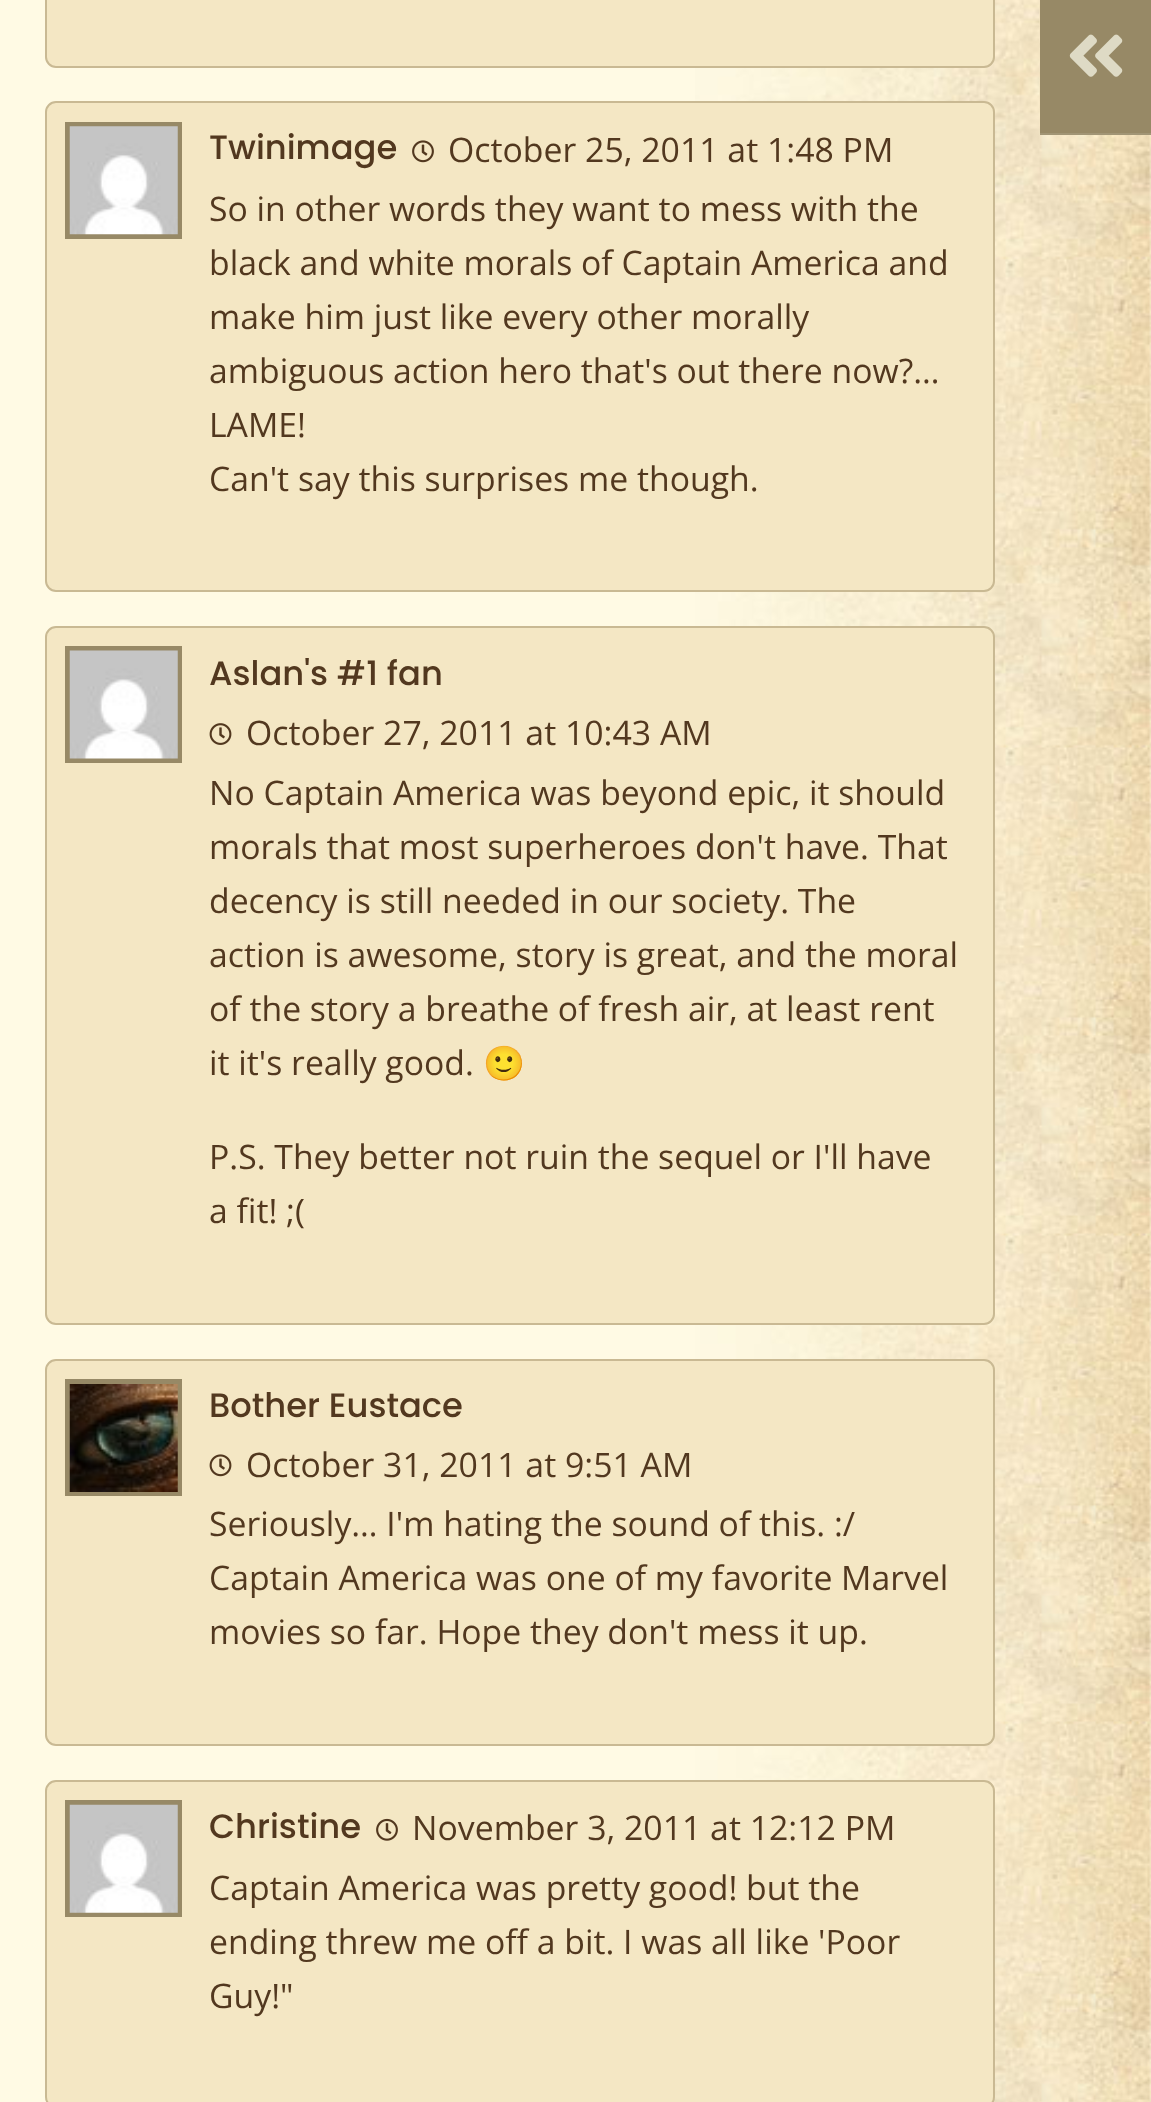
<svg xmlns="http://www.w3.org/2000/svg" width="1151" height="2102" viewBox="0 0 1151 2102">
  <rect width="100%" height="100%" fill="rgb(255,250,228)"/>
  <image x="695" y="0" width="456" height="2102" href="pic1.png"/>
  <image x="1039" y="0" width="1" height="135" href="pic2.png"/>
  <rect x="1040" y="0" width="111" height="133" fill="rgb(151,137,102)"/>
  <rect x="1040" y="133" width="111" height="2" fill="rgb(161,149,117)"/>
  <image x="1069" y="34" width="54" height="43" href="pic3.png"/>
  <rect x="46" y="-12" width="948" height="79" rx="10" fill="rgb(244,231,196)" stroke="rgb(201,185,147)" stroke-width="2"/>
  <rect x="46" y="102" width="948" height="489" rx="10" fill="rgb(244,231,196)" stroke="rgb(201,185,147)" stroke-width="2"/>
  <rect x="67.5" y="124.5" width="112" height="112" fill="none" stroke="rgb(151,137,102)" stroke-width="5"/>
  <image x="69" y="126" width="109" height="109" href="pic4.png"/>
  <text x="209" y="159" font-family="Poppins" font-size="33.75" font-weight="500" fill="rgb(82,56,31)">Twinimage</text>
  <image x="412" y="140" width="22" height="23" href="pic5.png"/>
  <text x="448" y="162" font-family="Open Sans" font-size="33.8" fill="rgb(82,56,31)">October 25, 2011 at 1:48 PM</text>
  <g font-family="Open Sans" font-size="33.75" fill="rgb(82,56,31)">
    <text>
      <tspan x="209" y="221">So in other words they want to mess with the</tspan>
      <tspan x="209" y="275">black and white morals of Captain America and</tspan>
      <tspan x="209" y="329">make him just like every other morally</tspan>
      <tspan x="209" y="383">ambiguous action hero that's out there now?…</tspan>
      <tspan x="209" y="437">LAME!</tspan>
      <tspan x="209" y="491">Can't say this surprises me though.</tspan>
    </text>
  </g>
  <rect x="46" y="627" width="948" height="697" rx="10" fill="rgb(244,231,196)" stroke="rgb(201,185,147)" stroke-width="2"/>
  <rect x="67.5" y="648.5" width="112" height="112" fill="none" stroke="rgb(151,137,102)" stroke-width="5"/>
  <image x="69" y="650" width="109" height="109" href="pic6.png"/>
  <text x="209" y="685" font-family="Poppins" font-size="33.75" font-weight="500" fill="rgb(82,56,31)">Aslan's #1 fan</text>
  <image x="209" y="723" width="23" height="22" href="pic7.png"/>
  <text x="246" y="745" font-family="Open Sans" font-size="33.8" fill="rgb(82,56,31)">October 27, 2011 at 10:43 AM</text>
  <g font-family="Open Sans" font-size="33.75" fill="rgb(82,56,31)">
    <text>
      <tspan x="209" y="805">No Captain America was beyond epic, it should</tspan>
      <tspan x="209" y="859">morals that most superheroes don't have. That</tspan>
      <tspan x="209" y="913">decency is still needed in our society. The</tspan>
      <tspan x="209" y="967">action is awesome, story is great, and the moral</tspan>
      <tspan x="209" y="1021">of the story a breathe of fresh air, at least rent</tspan>
      <tspan x="209" y="1075">it it's really good.</tspan>
    </text>
  </g>
  <text x="483" y="1075" font-family="Noto Color Emoji" font-size="33.75" fill="rgb(82,56,31)">🙂</text>
  <g font-family="Open Sans" font-size="33.75" fill="rgb(82,56,31)">
    <text>
      <tspan x="209" y="1169">P.S. They better not ruin the sequel or I'll have</tspan>
      <tspan x="209" y="1223">a fit! ;(</tspan>
    </text>
  </g>
  <rect x="46" y="1360" width="948" height="385" rx="10" fill="rgb(244,231,196)" stroke="rgb(201,185,147)" stroke-width="2"/>
  <rect x="67.5" y="1381.5" width="112" height="112" fill="none" stroke="rgb(151,137,102)" stroke-width="5"/>
  <image x="69" y="1384" width="109" height="108" href="pic8.png"/>
  <text x="209" y="1417" font-family="Poppins" font-size="33.75" font-weight="500" fill="rgb(82,56,31)">Bother Eustace</text>
  <image x="209" y="1454" width="23" height="23" href="pic9.png"/>
  <text x="246" y="1477" font-family="Open Sans" font-size="33.8" fill="rgb(82,56,31)">October 31, 2011 at 9:51 AM</text>
  <g font-family="Open Sans" font-size="33.75" fill="rgb(82,56,31)">
    <text>
      <tspan x="209" y="1536">Seriously… I'm hating the sound of this. :/</tspan>
      <tspan x="209" y="1590">Captain America was one of my favorite Marvel</tspan>
      <tspan x="209" y="1644">movies so far. Hope they don't mess it up.</tspan>
    </text>
  </g>
  <rect x="46" y="1781" width="948" height="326" rx="10" fill="rgb(244,231,196)" stroke="rgb(201,185,147)" stroke-width="2"/>
  <rect x="67.5" y="1802.5" width="112" height="112" fill="none" stroke="rgb(151,137,102)" stroke-width="5"/>
  <image x="69" y="1804" width="109" height="109" href="pic10.png"/>
  <text x="209" y="1838" font-family="Poppins" font-size="33.75" font-weight="500" fill="rgb(82,56,31)">Christine</text>
  <image x="376" y="1818" width="22" height="23" href="pic11.png"/>
  <text x="412" y="1840" font-family="Open Sans" font-size="33.8" fill="rgb(82,56,31)">November 3, 2011 at 12:12 PM</text>
  <g font-family="Open Sans" font-size="33.75" fill="rgb(82,56,31)">
    <text>
      <tspan x="209" y="1900">Captain America was pretty good! but the</tspan>
      <tspan x="209" y="1954">ending threw me off a bit. I was all like 'Poor</tspan>
      <tspan x="209" y="2008">Guy!"</tspan>
    </text>
  </g>
</svg>
